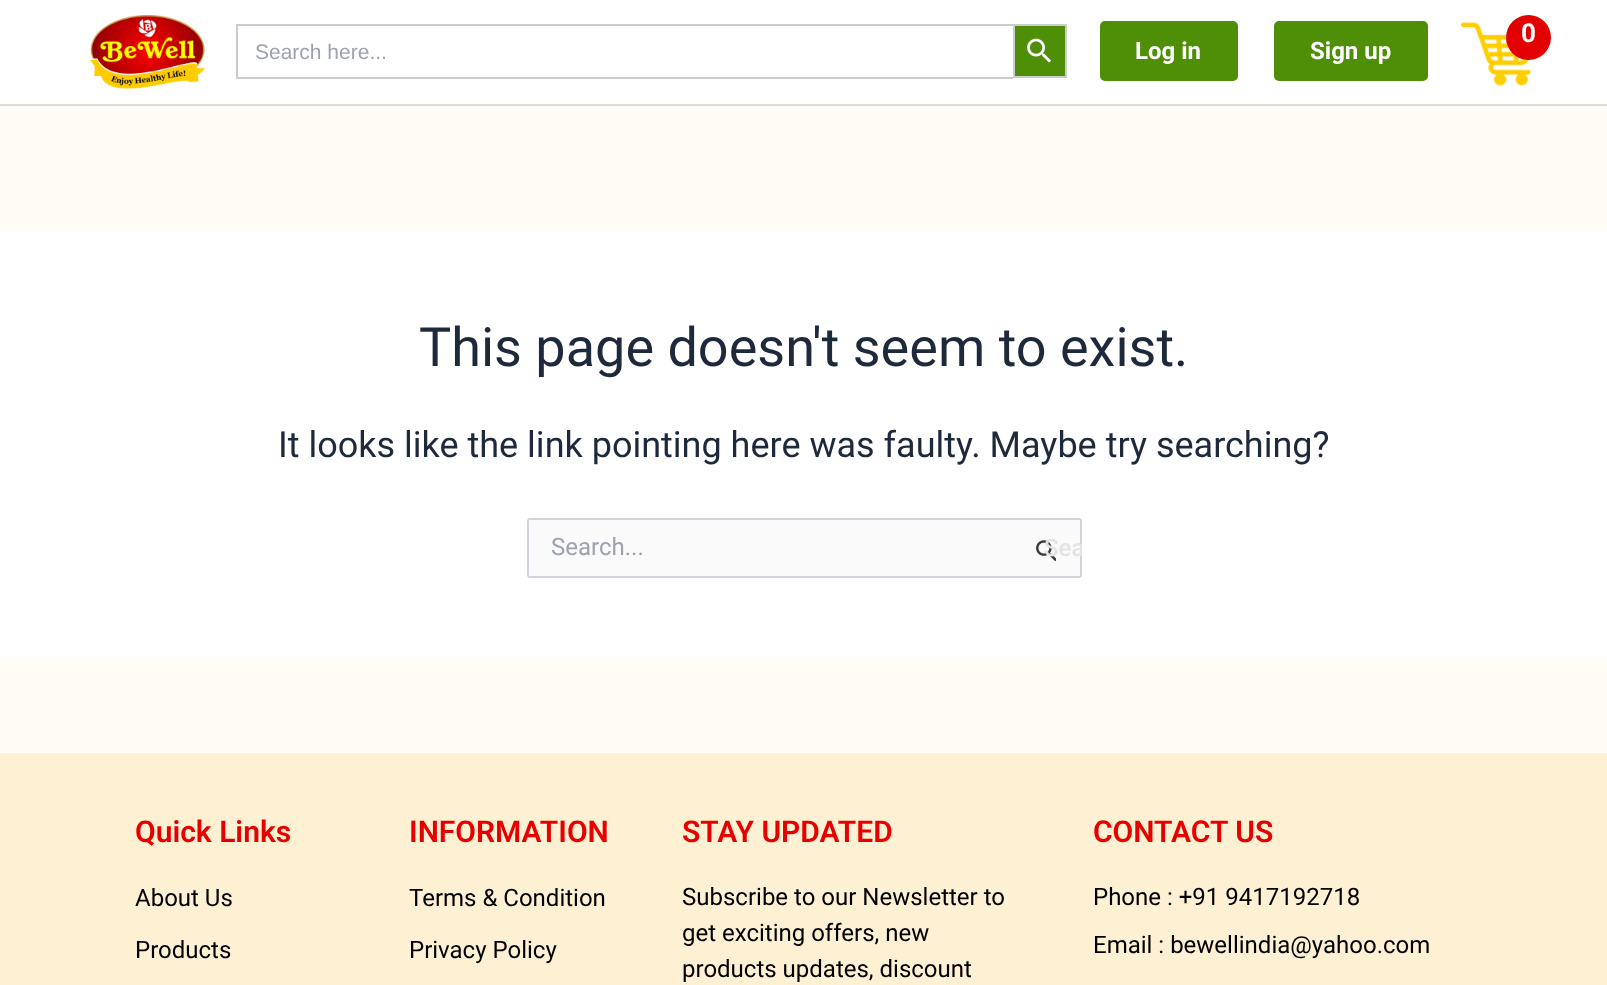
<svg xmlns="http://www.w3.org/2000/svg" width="1607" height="985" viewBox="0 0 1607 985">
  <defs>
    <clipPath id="clip1"><rect x="1014" y="518" width="68" height="63" rx="3"/></clipPath>
  </defs>
  <rect width="100%" height="100%" fill="rgb(255,253,245)"/>
  <rect x="0" y="0" width="1607" height="104" fill="rgb(255,255,255)"/>
  <rect x="0" y="104" width="1607" height="2" fill="rgb(221,221,221)"/>
  <image x="90" y="15" width="116" height="74" href="pic1.png"/>
  <image x="1461" y="22" width="71" height="64" href="pic2.png"/>
  <circle cx="1528.5" cy="37.5" r="22.5" fill="rgb(226,0,0)"/>
  <text x="1521" y="42" font-family="Roboto" font-size="26" font-weight="bold" fill="rgb(255,255,255)">0</text>
  <rect x="236" y="24" width="777" height="2" fill="rgb(204,204,204)"/>
  <rect x="236" y="77" width="777" height="2" fill="rgb(204,204,204)"/>
  <rect x="236" y="24" width="2" height="54" fill="rgb(204,204,204)"/>
  <text x="255" y="59" font-family="Liberation Sans" font-size="21" fill="rgb(156,163,175)">Search here...</text>
  <rect x="1014" y="25" width="52" height="52" fill="rgb(79,142,7)" stroke="rgb(204,204,204)" stroke-width="2"/>
  <image x="1027" y="38" width="25" height="25" href="pic3.png"/>
  <rect x="1100" y="21" width="138" height="60" rx="5" fill="rgb(79,142,7)"/>
  <text x="1135" y="59" font-family="Roboto" font-size="24" font-weight="bold" fill="rgb(255,255,255)">Log in</text>
  <rect x="1274" y="21" width="154" height="60" rx="5" fill="rgb(79,142,7)"/>
  <text x="1310" y="59" font-family="Roboto" font-size="24" font-weight="bold" fill="rgb(255,255,255)">Sign up</text>
  <rect x="0" y="231" width="1607" height="426" fill="rgb(255,255,255)"/>
  <text x="419" y="366" font-family="Roboto" font-size="54" fill="rgb(30,41,59)">This page doesn't seem to exist.</text>
  <text x="278" y="457" font-family="Roboto" font-size="36" fill="rgb(30,41,59)">It looks like the link pointing here was faulty. Maybe try searching?</text>
  <rect x="528" y="519" width="553" height="58" rx="2" fill="rgb(250,250,250)" stroke="rgb(209,213,219)" stroke-width="2"/>
  <text x="551" y="555" font-family="Roboto" font-size="24" fill="rgb(156,163,175)">Search...</text>
  <image x="1036" y="540" width="20" height="22" href="pic4.png"/>
  <g clip-path="url(#clip1)">
    <text x="1044" y="556" font-family="Roboto" font-size="24" font-weight="500" fill="rgb(227,227,227)">Sea</text>
  </g>
  <rect x="0" y="753" width="1607" height="232" fill="rgb(253,240,211)"/>
  <text x="135" y="842" font-family="Roboto" font-size="30" font-weight="600" fill="rgb(231,0,0)">Quick Links</text>
  <g font-family="Roboto" font-size="24" fill="rgb(0,0,0)">
    <text x="135" y="906">About Us</text>
    <text x="135" y="958">Products</text>
  </g>
  <text x="409" y="842" font-family="Roboto" font-size="30" font-weight="600" fill="rgb(231,0,0)">INFORMATION</text>
  <g font-family="Roboto" font-size="24" fill="rgb(0,0,0)">
    <text x="409" y="906">Terms &amp; Condition</text>
    <text x="409" y="958">Privacy Policy</text>
  </g>
  <text x="682" y="842" font-family="Roboto" font-size="30" font-weight="600" fill="rgb(231,0,0)">STAY UPDATED</text>
  <g font-family="Roboto" font-size="24" fill="rgb(0,0,0)">
    <text>
      <tspan x="682" y="905">Subscribe to our Newsletter to</tspan>
      <tspan x="682" y="941">get exciting offers, new</tspan>
      <tspan x="682" y="977">products updates, discount</tspan>
    </text>
  </g>
  <text x="1093" y="842" font-family="Roboto" font-size="30" font-weight="600" fill="rgb(231,0,0)">CONTACT US</text>
  <g font-family="Roboto" font-size="24" fill="rgb(0,0,0)">
    <text x="1093" y="905">Phone : +91 9417192718</text>
    <text x="1093" y="953">Email : bewellindia@yahoo.com</text>
  </g>
</svg>
